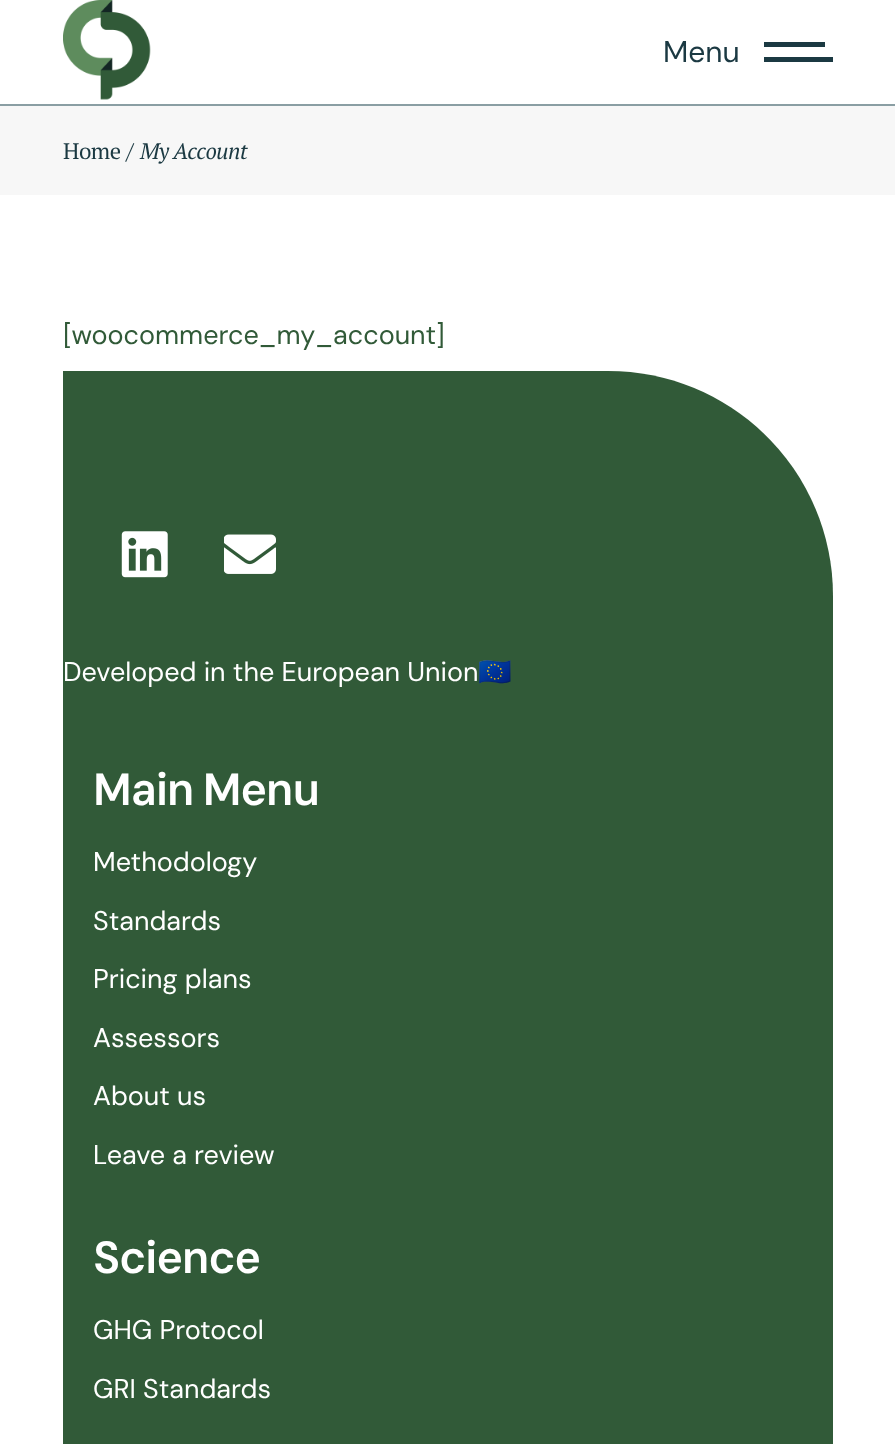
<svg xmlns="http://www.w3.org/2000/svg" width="895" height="1444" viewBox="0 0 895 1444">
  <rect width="100%" height="100%" fill="rgb(255,255,255)"/>
  <rect x="0" y="104" width="895" height="2" fill="rgb(138,158,163)"/>
  <image x="63" y="0" width="88" height="100" href="pic1.png"/>
  <text x="663" y="62" font-family="DM Sans" font-size="30" fill="rgb(27,57,66)">Menu</text>
  <rect x="764" y="42" width="61" height="5" fill="rgb(27,57,66)"/>
  <rect x="764" y="57" width="69" height="5" fill="rgb(27,57,66)"/>
  <rect x="0" y="106" width="895" height="89" fill="rgb(247,247,247)"/>
  <g font-family="PT Serif" font-size="22.5" letter-spacing="-0.5" fill="rgb(27,57,66)">
    <text x="63" y="159">Home</text>
    <text x="126" y="159">/</text>
  </g>
  <text x="140" y="159" font-family="PT Serif" font-size="22.5" font-style="italic" letter-spacing="-0.5" fill="rgb(27,57,66)">My Account</text>
  <text x="63" y="344" font-family="DM Sans" font-size="27" fill="rgb(49,90,56)">[woocommerce_my_account]</text>
  <path d="M63 371H608C732.5 371 833 471.5 833 596V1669H63Z" fill="rgb(49,90,56)"/>
  <image x="121" y="531" width="47" height="47" href="pic2.png"/>
  <image x="224" y="534" width="52" height="40" href="pic3.png"/>
  <text x="63" y="681" font-family="DM Sans" font-size="27" fill="rgb(255,255,255)">Developed in the European Union</text>
  <text x="478" y="681" font-family="Noto Color Emoji" font-size="27" font-weight="bold" fill="rgb(255,255,255)">🇪🇺</text>
  <text x="93" y="805" word-spacing="-1" font-family="DM Sans" font-size="45" font-weight="600" letter-spacing="-1" fill="rgb(255,255,255)">Main Menu</text>
  <g font-family="DM Sans" font-size="27" fill="rgb(255,255,255)">
    <text x="93" y="871">Methodology</text>
    <text x="93" y="930">Standards</text>
    <text x="93" y="988">Pricing plans</text>
    <text x="93" y="1047">Assessors</text>
    <text x="93" y="1105">About us</text>
    <text x="93" y="1164">Leave a review</text>
  </g>
  <text x="93" y="1273" font-family="DM Sans" font-size="45" font-weight="600" letter-spacing="-1" fill="rgb(255,255,255)">Science</text>
  <g font-family="DM Sans" font-size="27" fill="rgb(255,255,255)">
    <text x="93" y="1339">GHG Protocol</text>
    <text x="93" y="1398">GRI Standards</text>
  </g>
</svg>
